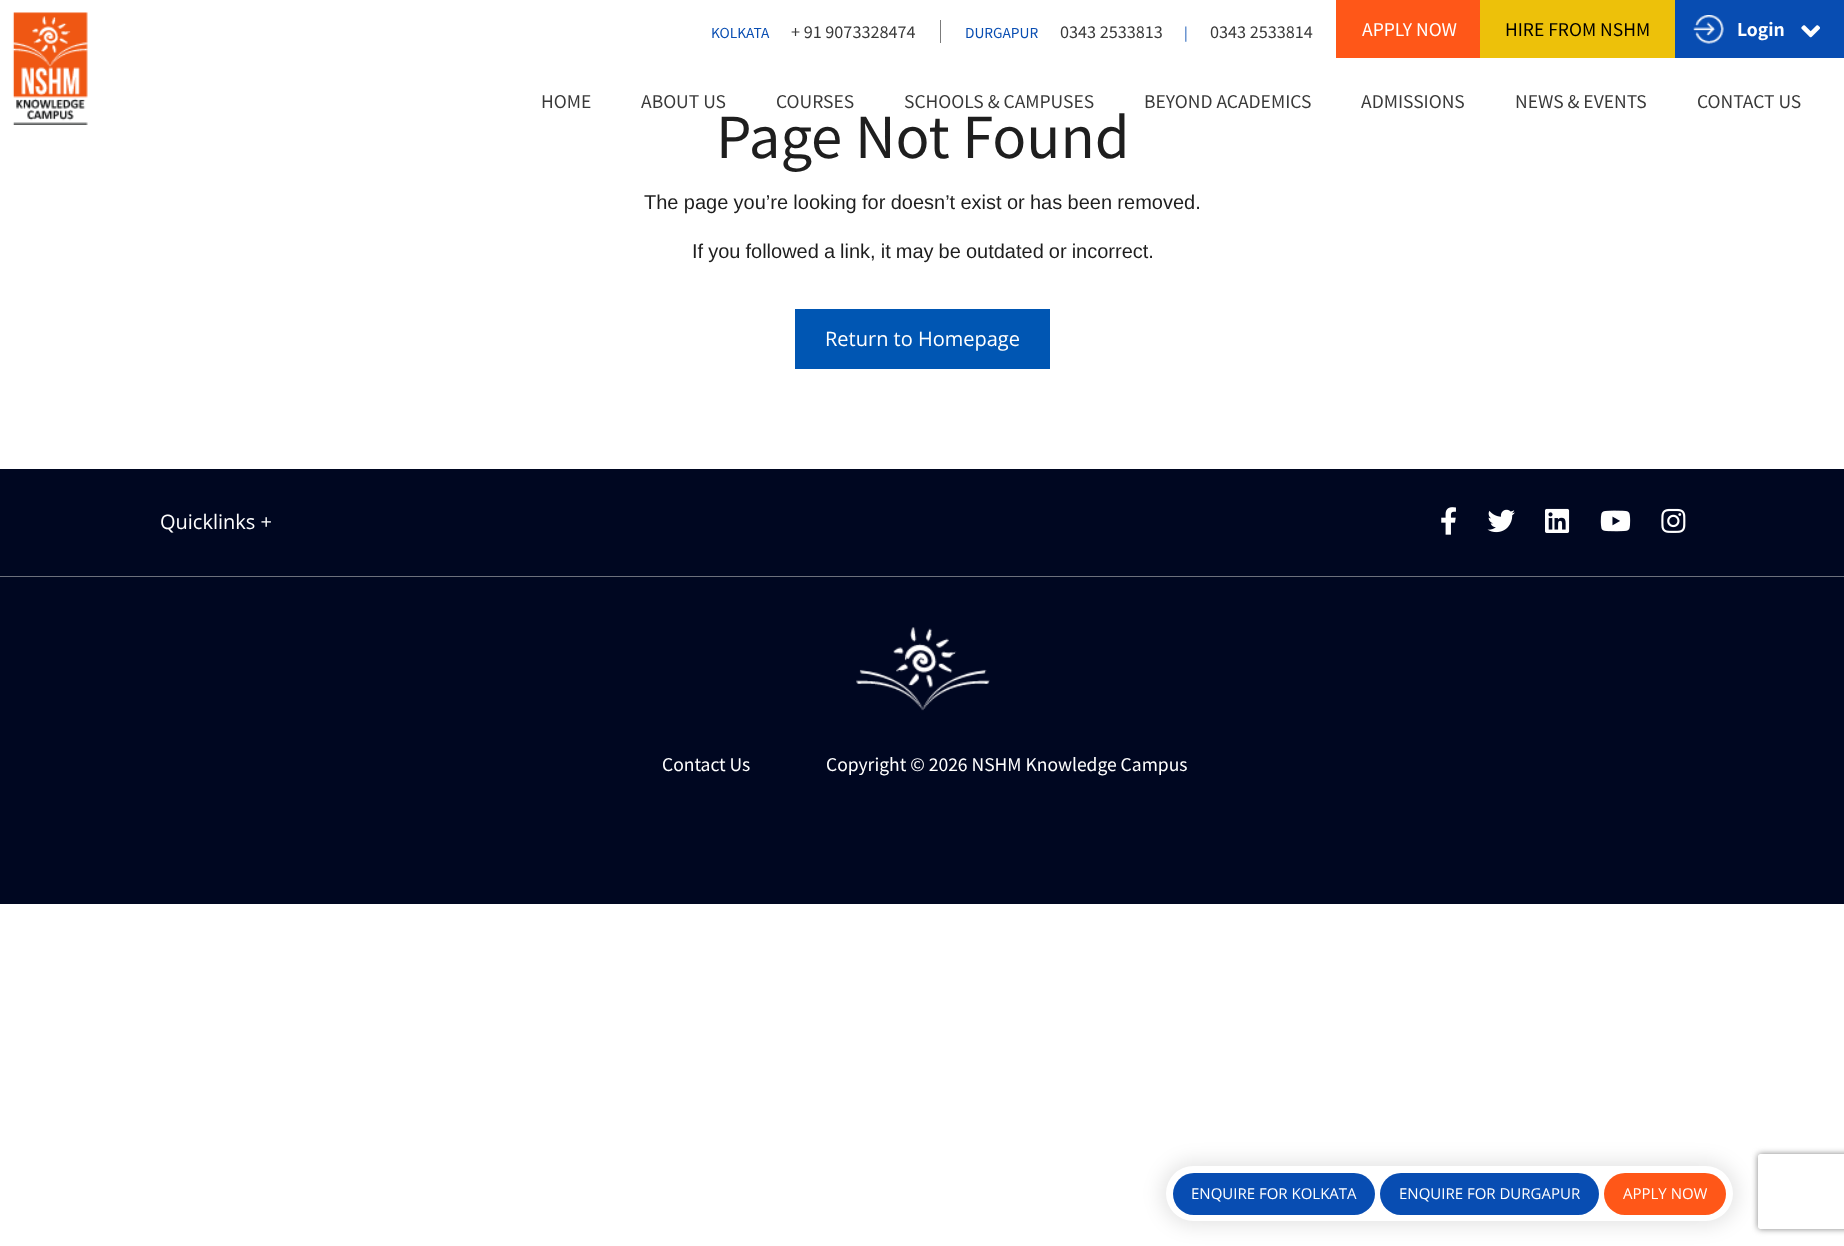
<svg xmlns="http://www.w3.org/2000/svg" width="1844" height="1246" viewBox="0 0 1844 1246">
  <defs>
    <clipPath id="clip1"><path d="M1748 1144H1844V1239H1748ZM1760.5 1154H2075.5C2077 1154 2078 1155 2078 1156.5V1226.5C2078 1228 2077 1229 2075.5 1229H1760.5C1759 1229 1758 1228 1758 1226.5V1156.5C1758 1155 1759 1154 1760.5 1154Z" clip-rule="evenodd"/></clipPath>
  </defs>
  <rect width="100%" height="100%" fill="rgb(255,255,255)"/>
  <image x="12" y="12" width="76" height="113" href="pic1.png"/>
  <text x="711" y="38" font-family="Noto Sans JP" font-size="13.75" fill="rgb(8,77,178)">KOLKATA</text>
  <text x="791" y="38" font-family="Noto Sans JP" font-size="16.25" fill="rgb(57,57,57)">+ 91 9073328474</text>
  <rect x="940" y="20" width="1" height="23" fill="rgb(123,123,123)"/>
  <text x="965" y="38" font-family="Noto Sans JP" font-size="13.75" fill="rgb(8,77,178)">DURGAPUR</text>
  <text x="1060" y="38" font-family="Noto Sans JP" font-size="16.25" fill="rgb(57,57,57)">0343 2533813</text>
  <text x="1184" y="38" font-family="Noto Sans JP" font-size="13.75" fill="rgb(8,77,178)">|</text>
  <text x="1210" y="38" font-family="Noto Sans JP" font-size="16.25" fill="rgb(57,57,57)">0343 2533814</text>
  <rect x="1336" y="0" width="144" height="58" fill="rgb(255,87,24)"/>
  <text x="1362" y="36" font-family="Noto Sans JP" font-size="17.5" fill="rgb(255,255,255)">APPLY NOW</text>
  <rect x="1480" y="0" width="195" height="58" fill="rgb(237,193,10)"/>
  <text x="1505" y="36" font-family="Noto Sans JP" font-size="17.5" fill="rgb(0,0,0)">HIRE FROM NSHM</text>
  <rect x="1675" y="0" width="169" height="58" fill="rgb(8,77,178)"/>
  <image x="1693" y="15" width="31" height="29" href="pic2.png"/>
  <text x="1737" y="36" font-family="Noto Sans JP" font-size="17.5" font-weight="bold" fill="rgb(255,255,255)">Login</text>
  <image x="1801" y="25" width="19" height="13" href="pic3.png"/>
  <g font-family="Noto Sans JP" font-size="17.5" fill="rgb(57,57,57)">
    <text x="541" y="108">HOME</text>
    <text x="641" y="108">ABOUT US</text>
    <text x="776" y="108">COURSES</text>
    <text x="904" y="108">SCHOOLS &amp; CAMPUSES</text>
    <text x="1144" y="108">BEYOND ACADEMICS</text>
    <text x="1361" y="108">ADMISSIONS</text>
    <text x="1515" y="108">NEWS &amp; EVENTS</text>
    <text x="1697" y="108">CONTACT US</text>
  </g>
  <text x="716" y="158" font-family="Noto Sans JP" font-size="56.25" fill="rgb(30,30,30)">Page Not Found</text>
  <g font-family="Liberation Sans" font-size="20" fill="rgb(30,30,30)">
    <text x="644" y="209" word-spacing="-0.25">The page you’re looking for doesn’t exist or has been removed.</text>
    <text x="692" y="258" word-spacing="-0.5">If you followed a link, it may be outdated or incorrect.</text>
  </g>
  <rect x="795" y="309" width="255" height="60" fill="rgb(0,86,179)"/>
  <text x="825" y="346" font-family="Open Sans" font-size="20" fill="rgb(255,255,255)">Return to Homepage</text>
  <rect x="0" y="469" width="1844" height="435" fill="rgb(0,7,33)"/>
  <rect x="0" y="576" width="1844" height="1" fill="rgb(108,112,124)"/>
  <text x="160" y="529" font-family="Open Sans" font-size="20" fill="rgb(255,255,255)">Quicklinks +</text>
  <image x="1441" y="507" width="15" height="28" href="pic4.png"/>
  <image x="1487" y="509" width="28" height="24" href="pic5.png"/>
  <image x="1545" y="508" width="25" height="25" href="pic6.png"/>
  <image x="1600" y="510" width="31" height="22" href="pic7.png"/>
  <image x="1661" y="508" width="25" height="25" href="pic8.png"/>
  <image x="856" y="627" width="134" height="84" href="pic9.png"/>
  <g font-family="Noto Sans JP" font-size="17.5" fill="rgb(255,255,255)">
    <text x="662" y="771">Contact Us</text>
    <text x="826" y="771">Copyright © 2026 NSHM Knowledge Campus</text>
  </g>
  <rect x="1161" y="1161" width="577" height="65" rx="32.5" fill="rgba(0,0,0,0.1)" filter="blur(9.5px)"/>
  <rect x="1166" y="1166" width="567" height="55" rx="27.5" fill="rgb(255,255,255)"/>
  <rect x="1173" y="1173" width="202" height="42" rx="21" fill="rgb(8,77,178)"/>
  <text x="1191" y="1199" font-family="Open Sans" font-size="15" fill="rgb(255,255,255)">ENQUIRE FOR KOLKATA</text>
  <rect x="1380" y="1173" width="219" height="42" rx="21" fill="rgb(8,77,178)"/>
  <text x="1399" y="1199" font-family="Open Sans" font-size="15" fill="rgb(255,255,255)">ENQUIRE FOR DURGAPUR</text>
  <rect x="1604" y="1173" width="122" height="42" rx="21" fill="rgb(255,87,24)"/>
  <text x="1623" y="1199" font-family="Open Sans" font-size="15" fill="rgb(255,255,255)">APPLY NOW</text>
  <g clip-path="url(#clip1)">
    <rect x="1758" y="1154" width="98" height="75" rx="2.5" fill="rgb(128,128,128)" filter="blur(3px)"/>
  </g>
</svg>
